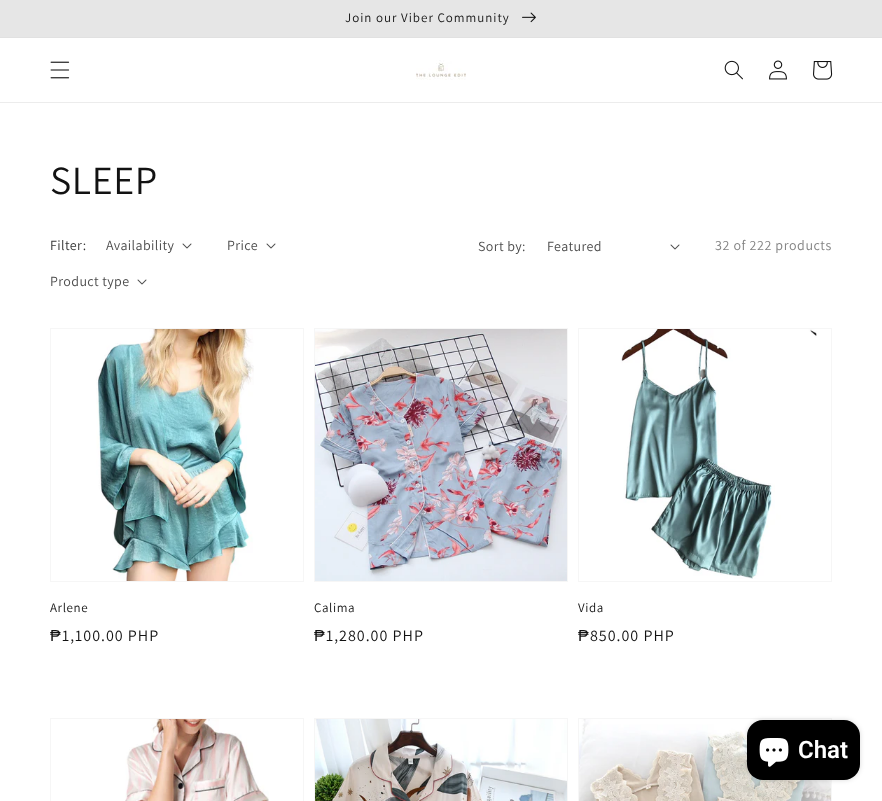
<svg xmlns="http://www.w3.org/2000/svg" width="882" height="801" viewBox="0 0 882 801">
  <rect width="100%" height="100%" fill="rgb(255,255,255)"/>
  <rect x="0" y="37" width="882" height="1" fill="rgb(225,225,225)"/>
  <rect x="0" y="0" width="882" height="37" fill="rgb(230,230,230)"/>
  <text x="345" y="22" font-family="Assistant" font-size="13" letter-spacing="1" fill="rgb(18,18,18)">Join our Viber Community</text>
  <image x="522" y="12" width="14" height="11" href="pic1.png"/>
  <rect x="0" y="102" width="882" height="1" fill="rgb(236,236,236)"/>
  <image x="50" y="61" width="20" height="18" href="pic2.png"/>
  <image x="416" y="60" width="50" height="20" href="pic3.png"/>
  <image x="724" y="60" width="19" height="20" href="pic4.png"/>
  <image x="769" y="60" width="18" height="20" href="pic5.png"/>
  <image x="813" y="61" width="20" height="19" href="pic6.png"/>
  <text x="50" y="194" font-family="Assistant" font-size="40" letter-spacing="0.6" fill="rgb(18,18,18)">SLEEP</text>
  <text x="50" y="250" font-family="Assistant" font-size="14" letter-spacing="0.4" fill="rgb(54,54,54)">Filter:</text>
  <text x="106" y="250" font-family="Assistant" font-size="14" letter-spacing="0.4" fill="rgb(77,77,77)">Availability</text>
  <image x="182" y="243" width="10" height="6" href="pic7.png"/>
  <text x="227" y="250" font-family="Assistant" font-size="14" letter-spacing="0.4" fill="rgb(77,77,77)">Price</text>
  <image x="266" y="243" width="10" height="6" href="pic7.png"/>
  <text x="50" y="286" font-family="Assistant" font-size="14" letter-spacing="0.4" fill="rgb(77,77,77)">Product type</text>
  <image x="137" y="279" width="10" height="6" href="pic7.png"/>
  <g font-family="Assistant" font-size="14" letter-spacing="0.4" fill="rgb(77,77,77)">
    <text x="478" y="251">Sort by:</text>
    <text x="547" y="251">Featured</text>
  </g>
  <image x="670" y="244" width="10" height="6" href="pic7.png"/>
  <text x="715" y="250" font-family="Assistant" font-size="14" letter-spacing="0.6" fill="rgb(131,131,131)">32 of 222 products</text>
  <rect x="50.5" y="328.5" width="253" height="253" fill="none" stroke="rgb(246,246,246)"/>
  <image x="96" y="329" width="158" height="252" href="pic8.png"/>
  <text x="50" y="612" font-family="Assistant" font-size="13" letter-spacing="0.6" fill="rgb(18,18,18)">Arlene</text>
  <text x="50" y="641" font-family="Liberation Sans" font-size="16" letter-spacing="1" fill="rgb(18,18,18)">₱</text>
  <text x="62" y="641" font-family="Assistant" font-size="16" letter-spacing="1" fill="rgb(18,18,18)">1,100.00 PHP</text>
  <rect x="314.5" y="328.5" width="253" height="253" fill="none" stroke="rgb(246,246,246)"/>
  <image x="315" y="329" width="252" height="252" href="pic9.png"/>
  <text x="314" y="612" font-family="Assistant" font-size="13" letter-spacing="0.6" fill="rgb(18,18,18)">Calima</text>
  <text x="314" y="641" font-family="Liberation Sans" font-size="16" letter-spacing="1" fill="rgb(18,18,18)">₱</text>
  <text x="326" y="641" font-family="Assistant" font-size="16" letter-spacing="1" fill="rgb(18,18,18)">1,280.00 PHP</text>
  <rect x="578.5" y="328.5" width="253" height="253" fill="none" stroke="rgb(246,246,246)"/>
  <image x="620" y="329" width="197" height="250" href="pic10.png"/>
  <text x="578" y="612" font-family="Assistant" font-size="13" letter-spacing="0.6" fill="rgb(18,18,18)">Vida</text>
  <text x="578" y="641" font-family="Liberation Sans" font-size="16" letter-spacing="1" fill="rgb(18,18,18)">₱</text>
  <text x="590" y="641" font-family="Assistant" font-size="16" letter-spacing="1" fill="rgb(18,18,18)">850.00 PHP</text>
  <rect x="50.5" y="718.5" width="253" height="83" fill="none" stroke="rgb(246,246,246)"/>
  <image x="125" y="719" width="144" height="82" href="pic11.png"/>
  <rect x="314.5" y="718.5" width="253" height="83" fill="none" stroke="rgb(246,246,246)"/>
  <image x="315" y="719" width="252" height="82" href="pic12.png"/>
  <rect x="578.5" y="718.5" width="253" height="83" fill="none" stroke="rgb(246,246,246)"/>
  <image x="579" y="719" width="252" height="82" href="pic13.png"/>
  <rect x="747" y="720" width="113" height="60" rx="16" fill="rgba(0,0,0,0.15)" filter="blur(2.5px)"/>
  <rect x="747" y="720" width="113" height="60" rx="16" fill="rgb(0,0,0)"/>
  <image x="759" y="738" width="30" height="29" href="pic14.png"/>
  <text x="798" y="758" font-family="Roboto" font-size="24" font-weight="600" fill="rgb(255,255,255)">Chat</text>
</svg>
